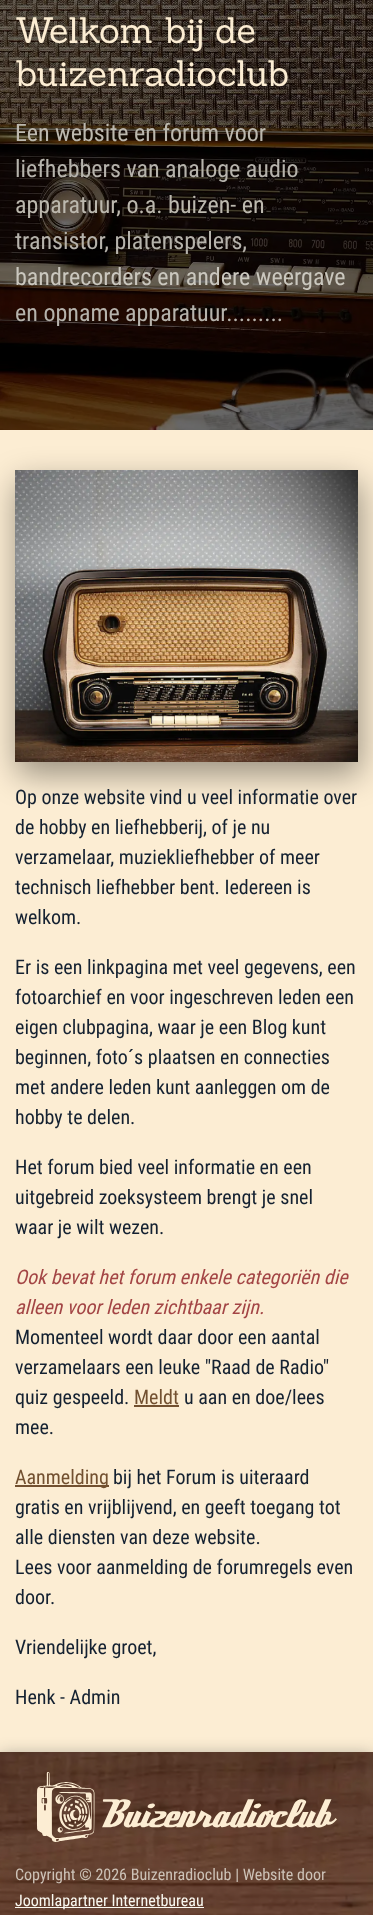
<svg xmlns="http://www.w3.org/2000/svg" width="373" height="1915" viewBox="0 0 373 1915">
  <rect width="100%" height="100%" fill="rgb(252,237,211)"/>
  <image x="0" y="0" width="373" height="430" href="pic1.png"/>
  <g font-family="Sanchez" font-size="36" fill="rgb(252,237,211)">
    <text>
      <tspan x="15" y="43">Welkom bij de</tspan>
      <tspan x="15" y="86">buizenradioclub</tspan>
    </text>
  </g>
  <text x="15" y="141" font-family="Roboto Condensed" font-size="24" fill="rgb(188,184,174)">Een website en forum voor</text>
  <text x="15" y="177" font-family="Roboto Condensed" font-size="24" fill="rgb(182,179,172)">liefhebbers van analoge audio</text>
  <text x="15" y="213" font-family="Roboto Condensed" font-size="24" fill="rgb(188,184,174)">apparatuur, o.a. buizen- en</text>
  <text x="15" y="249" font-family="Roboto Condensed" font-size="24" fill="rgb(182,179,172)">transistor, platenspelers,</text>
  <text x="15" y="285" font-family="Roboto Condensed" font-size="24" fill="rgb(202,199,190)">bandrecorders en andere weergave</text>
  <g font-family="Roboto Condensed" font-size="24" fill="rgb(182,179,172)">
    <text x="15" y="321">en opname</text>
    <text x="125" y="321">apparatuur.........</text>
  </g>
  <rect x="17" y="482" width="343" height="292" fill="rgba(0,0,0,0.4)" filter="blur(16px)"/>
  <image x="15" y="470" width="343" height="292" href="pic2.png"/>
  <g font-family="Roboto Condensed" font-size="20" fill="rgb(20,33,49)">
    <text>
      <tspan x="15" y="804">Op onze website vind u veel informatie over</tspan>
      <tspan x="15" y="834">de hobby en liefhebberij, of je nu</tspan>
      <tspan x="15" y="864">verzamelaar, muziekliefhebber of meer</tspan>
      <tspan x="15" y="894">technisch liefhebber bent. Iedereen is</tspan>
      <tspan x="15" y="924">welkom.</tspan>
    </text>
    <text>
      <tspan x="15" y="974">Er is een linkpagina met veel gegevens, een</tspan>
      <tspan x="15" y="1004">fotoarchief en voor ingeschreven leden een</tspan>
      <tspan x="15" y="1034">eigen clubpagina, waar je een Blog kunt</tspan>
      <tspan x="15" y="1064">beginnen, foto´s plaatsen en connecties</tspan>
      <tspan x="15" y="1094">met andere leden kunt aanleggen om de</tspan>
      <tspan x="15" y="1124">hobby te delen.</tspan>
    </text>
    <text>
      <tspan x="15" y="1174">Het forum bied veel informatie en een</tspan>
      <tspan x="15" y="1204">uitgebreid zoeksysteem brengt je snel</tspan>
      <tspan x="15" y="1234">waar je wilt wezen.</tspan>
    </text>
  </g>
  <g font-family="Roboto Condensed" font-size="20" font-style="italic" fill="rgb(163,69,69)">
    <text>
      <tspan x="15" y="1284">Ook bevat het forum enkele categoriën die</tspan>
      <tspan x="15" y="1314">alleen voor leden zichtbaar zijn.</tspan>
    </text>
  </g>
  <g font-family="Roboto Condensed" font-size="20" fill="rgb(20,33,49)">
    <text>
      <tspan x="15" y="1344">Momenteel wordt daar door een aantal</tspan>
      <tspan x="15" y="1374">verzamelaars een leuke "Raad de Radio"</tspan>
      <tspan x="15" y="1404">quiz gespeeld.</tspan>
    </text>
  </g>
  <text x="134" y="1404" font-family="Roboto Condensed" font-size="20" fill="rgb(114,80,48)">Meldt</text>
  <rect x="134" y="1405" width="45" height="2" fill="rgb(114,80,48)"/>
  <g font-family="Roboto Condensed" font-size="20" fill="rgb(20,33,49)">
    <text x="184" y="1404">u aan en doe/lees</text>
    <text x="15" y="1434">mee.</text>
  </g>
  <rect x="15" y="1485" width="94" height="2" fill="rgb(114,80,48)"/>
  <text x="15" y="1484" font-family="Roboto Condensed" font-size="20" fill="rgb(114,80,48)">Aanmelding</text>
  <g font-family="Roboto Condensed" font-size="20" fill="rgb(20,33,49)">
    <text x="113" y="1484">bij het Forum is uiteraard</text>
    <text>
      <tspan x="15" y="1514">gratis en vrijblijvend, en geeft toegang tot</tspan>
      <tspan x="15" y="1544">alle diensten van deze website.</tspan>
      <tspan x="15" y="1574">Lees voor aanmelding de forumregels even</tspan>
      <tspan x="15" y="1604">door.</tspan>
    </text>
    <text x="15" y="1654">Vriendelijke groet,</text>
    <text x="15" y="1704">Henk - Admin</text>
  </g>
  <rect x="0" y="1754" width="373" height="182" fill="rgba(14,30,37,0.32)" filter="blur(8px)"/>
  <image x="0" y="1752" width="373" height="163" href="pic3.png"/>
  <image x="37" y="1772" width="300" height="70" href="pic4.png"/>
  <text x="15" y="1880" font-family="Roboto Condensed" font-size="16" fill="rgb(205,194,183)">Copyright © 2026 Buizenradioclub | Website door</text>
  <rect x="15" y="1907" width="189" height="1" fill="rgb(250,249,241)"/>
  <text x="15" y="1906" font-family="Roboto Condensed" font-size="16" fill="rgb(250,249,241)">Joomlapartner Internetbureau</text>
</svg>
